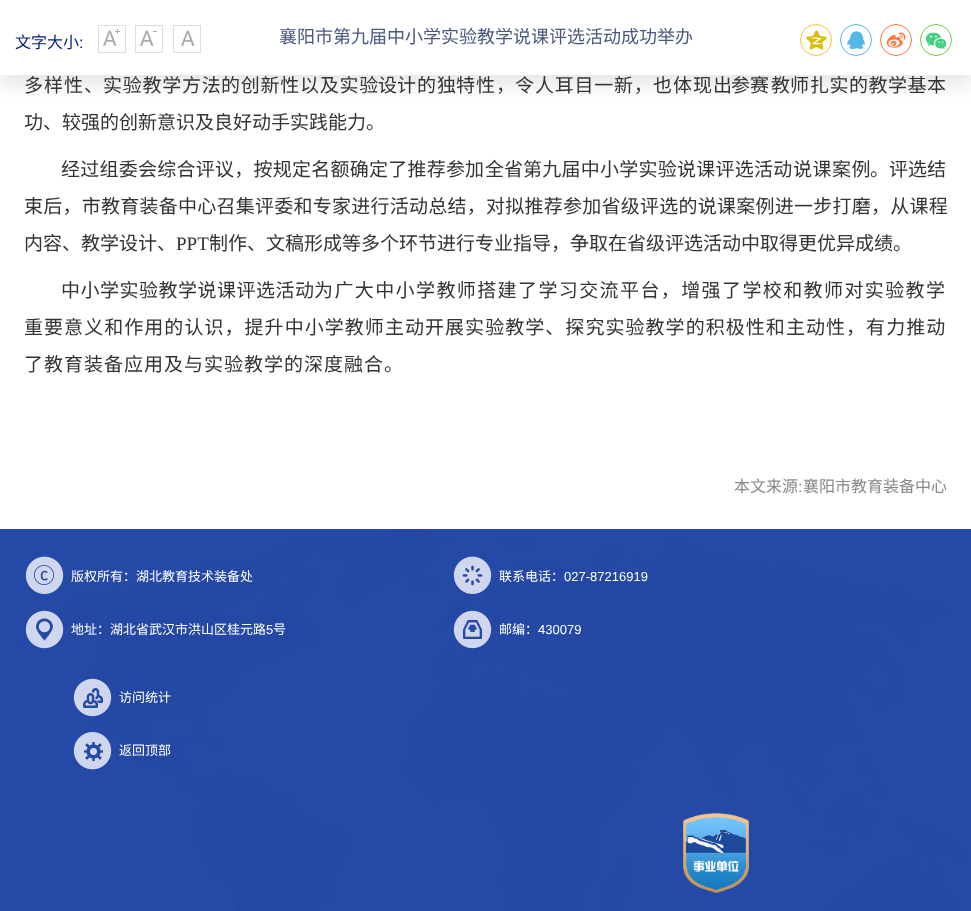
<svg xmlns="http://www.w3.org/2000/svg" width="971" height="911" viewBox="0 0 971 911">
  <rect width="100%" height="100%" fill="rgb(255,255,255)"/>
  <rect x="0" y="10" width="971" height="75" fill="rgba(0,0,0,0.1)" filter="blur(10px)"/>
  <rect x="0" y="0" width="971" height="75" fill="rgb(255,255,255)"/>
  <text x="15" y="48" font-family="Noto Sans CJK SC" font-size="16" fill="rgb(0,34,119)">文字大小</text>
  <text x="79" y="48" font-family="Liberation Sans" font-size="16" fill="rgb(0,34,119)">:</text>
  <image x="103" y="29" width="17" height="17" href="pic1.png"/>
  <rect x="98.5" y="25.5" width="27" height="27" fill="none" stroke="rgb(221,221,221)"/>
  <image x="140" y="30" width="17" height="16" href="pic2.png"/>
  <rect x="135.5" y="25.5" width="27" height="27" fill="none" stroke="rgb(221,221,221)"/>
  <image x="181" y="30" width="14" height="16" href="pic3.png"/>
  <rect x="173.5" y="25.5" width="27" height="27" fill="none" stroke="rgb(221,221,221)"/>
  <image x="806" y="30" width="21" height="20" href="pic4.png"/>
  <circle cx="816" cy="40" r="15.5" fill="none" stroke="rgb(253,190,61)"/>
  <circle cx="856" cy="40" r="15.5" fill="none" stroke="rgb(86,182,231)"/>
  <image x="847" y="31" width="18" height="18" href="pic5.png"/>
  <circle cx="896" cy="40" r="15.5" fill="none" stroke="rgb(255,118,59)"/>
  <image x="886" y="32" width="20" height="16" href="pic6.png"/>
  <image x="926" y="32" width="21" height="17" href="pic7.png"/>
  <circle cx="936" cy="40" r="15.5" fill="none" stroke="rgb(123,197,73)"/>
  <text x="279" y="43" font-family="Noto Sans CJK SC" font-size="18" fill="rgb(73,88,126)">襄阳市第九届中小学实验教学说课评选活动成功举办</text>
  <text x="24" y="92" font-family="Noto Sans CJK SC" font-size="19" letter-spacing="1" fill="rgb(51,51,51)">多样性、</text>
  <g font-family="Noto Sans CJK SC" font-size="19" letter-spacing="0.75" fill="rgb(51,51,51)">
    <text x="103" y="92">实验教学方法</text>
    <text x="221" y="92">的创新性以及实验</text>
  </g>
  <g font-family="Noto Sans CJK SC" font-size="19" fill="rgb(51,51,51)">
    <text x="378" y="92">设计</text>
    <text x="417" y="92">的</text>
    <text x="437" y="92">独特</text>
    <text x="476" y="92">性</text>
    <text x="496" y="92">，</text>
    <text x="515" y="92">令</text>
  </g>
  <text x="535" y="92" font-family="Noto Sans CJK SC" font-size="19" letter-spacing="0.75" fill="rgb(51,51,51)">人耳目一新，</text>
  <text x="653" y="92" font-family="Noto Sans CJK SC" font-size="19" letter-spacing="1" fill="rgb(51,51,51)">也体现出</text>
  <g font-family="Noto Sans CJK SC" font-size="19" fill="rgb(51,51,51)">
    <text x="731" y="92">参赛</text>
    <text x="771" y="92">教师</text>
  </g>
  <text x="810" y="92" font-family="Noto Sans CJK SC" font-size="19" letter-spacing="0.5" fill="rgb(51,51,51)">扎实的教学基本</text>
  <text x="24" y="129" font-family="Noto Sans CJK SC" font-size="19" fill="rgb(51,51,51)">功、较强的创新意识及良好动手实践能力。</text>
  <text x="61" y="176" font-family="Noto Sans CJK SC" font-size="19" letter-spacing="0.25" fill="rgb(51,51,51)">经过组委会综合评议，按规定名额确定了推荐</text>
  <g font-family="Noto Sans CJK SC" font-size="19" fill="rgb(51,51,51)">
    <text x="446" y="176">参加</text>
    <text x="485" y="176">全省</text>
  </g>
  <text x="523" y="176" font-family="Noto Sans CJK SC" font-size="19" letter-spacing="0.25" fill="rgb(51,51,51)">第九届中小学实验说课评选活动</text>
  <text x="793" y="176" font-family="Noto Sans CJK SC" font-size="19" letter-spacing="0.5" fill="rgb(51,51,51)">说课案例</text>
  <g font-family="Noto Sans CJK SC" font-size="19" fill="rgb(51,51,51)">
    <text x="870" y="176">。</text>
    <text x="889" y="176">评选结</text>
  </g>
  <text x="24" y="213" font-family="Noto Sans CJK SC" font-size="19" letter-spacing="0.25" fill="rgb(51,51,51)">束后，市教育装备中心召集评委和专家进行活动总结，对拟推荐参加省级评选的说课案例进一步打磨，从课程</text>
  <text x="24" y="250" font-family="Noto Sans CJK SC" font-size="19" fill="rgb(51,51,51)">内容、教学设计、</text>
  <text x="176" y="250" font-family="Liberation Serif" font-size="19" fill="rgb(51,51,51)">PPT</text>
  <text x="209" y="250" font-family="Noto Sans CJK SC" font-size="19" fill="rgb(51,51,51)">制作、文稿形成等多个环节进行专业指导，争取在省级评选活动中取得更优异成绩。</text>
  <text x="61" y="297" font-family="Noto Sans CJK SC" font-size="19" letter-spacing="0.5" fill="rgb(51,51,51)">中小学实验教学说课评选活动</text>
  <text x="314" y="297" font-family="Noto Sans CJK SC" font-size="19" letter-spacing="1.4" fill="rgb(51,51,51)">为广大中小学教师搭建了学习交流平台，增强了学校和教师对实验教学</text>
  <text x="24" y="334" font-family="Noto Sans CJK SC" font-size="19" letter-spacing="1.05" fill="rgb(51,51,51)">重要意义和作用的认识，提升中小学教师主动开展实验教学、探究实验教学的积极性和主动性，有力推动</text>
  <text x="24" y="371" font-family="Noto Sans CJK SC" font-size="19" letter-spacing="1" fill="rgb(51,51,51)">了教育装备应用及与实验教学的深度融合。</text>
  <text x="734" y="492" font-family="Noto Sans CJK SC" font-size="16" fill="rgb(136,136,136)">本文来源</text>
  <text x="798" y="492" font-family="Liberation Sans" font-size="16" fill="rgb(136,136,136)">:</text>
  <text x="803" y="492" font-family="Noto Sans CJK SC" font-size="16" fill="rgb(136,136,136)">襄阳市教育装备中心</text>
  <rect x="0" y="529" width="971" height="382" fill="rgb(37,73,167)"/>
  <image x="18" y="530" width="944" height="381" href="pic8.png"/>
  <image x="25" y="556" width="39" height="38" href="pic9.png"/>
  <text x="71" y="581" font-family="Noto Sans CJK SC" font-size="13" fill="rgb(255,255,255)">版权所有：湖北教育技术装备处</text>
  <image x="25" y="610" width="39" height="39" href="pic10.png"/>
  <text x="71" y="634" font-family="Noto Sans CJK SC" font-size="13" fill="rgb(255,255,255)">地址：湖北省武汉市洪山区桂元路</text>
  <text x="266" y="634" font-family="Liberation Sans" font-size="13" fill="rgb(255,255,255)">5</text>
  <text x="273" y="634" font-family="Noto Sans CJK SC" font-size="13" fill="rgb(255,255,255)">号</text>
  <image x="453" y="556" width="39" height="38" href="pic11.png"/>
  <text x="499" y="581" font-family="Noto Sans CJK SC" font-size="13" fill="rgb(255,255,255)">联系电话：</text>
  <text x="564" y="581" font-family="Liberation Sans" font-size="13" fill="rgb(255,255,255)">027-87216919</text>
  <image x="453" y="610" width="39" height="39" href="pic12.png"/>
  <text x="499" y="634" font-family="Noto Sans CJK SC" font-size="13" fill="rgb(255,255,255)">邮编：</text>
  <text x="538" y="634" font-family="Liberation Sans" font-size="13" fill="rgb(255,255,255)">430079</text>
  <image x="73" y="678" width="39" height="39" href="pic13.png"/>
  <text x="119" y="702" font-family="Noto Sans CJK SC" font-size="13" fill="rgb(255,255,255)">访问统计</text>
  <image x="73" y="732" width="39" height="38" href="pic14.png"/>
  <text x="119" y="755" font-family="Noto Sans CJK SC" font-size="13" fill="rgb(255,255,255)">返回顶部</text>
  <image x="683" y="813" width="66" height="80" href="pic15.png"/>
</svg>
